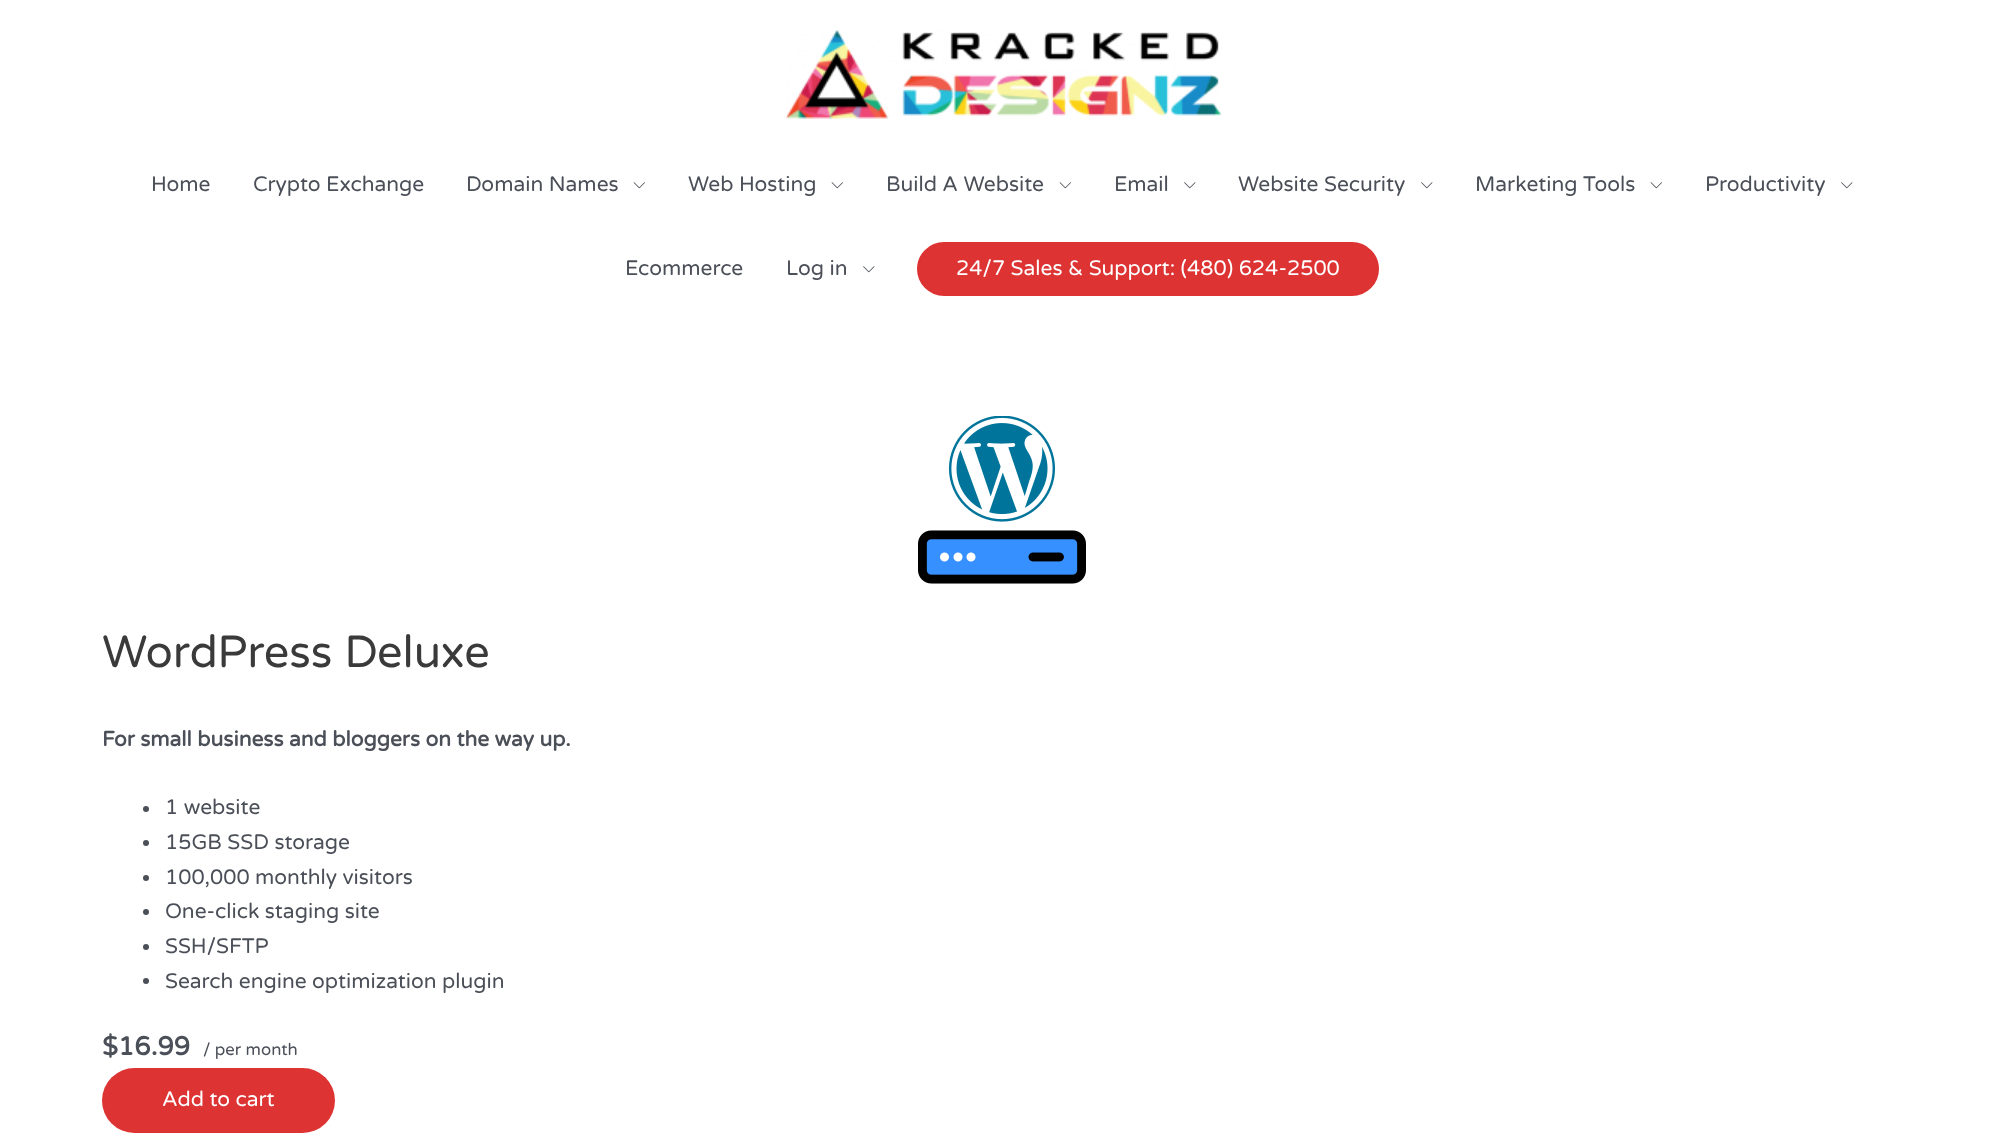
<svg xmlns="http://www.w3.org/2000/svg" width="2003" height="1139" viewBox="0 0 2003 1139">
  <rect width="100%" height="100%" fill="rgb(255,255,255)"/>
  <image x="786" y="29" width="436" height="90" href="pic1.png"/>
  <g font-family="Varela Round" font-size="21" fill="rgb(75,79,88)">
    <text x="151" y="191">Home</text>
    <text x="253" y="191">Crypto Exchange</text>
    <text x="466" y="191">Domain Names</text>
  </g>
  <image x="633" y="182" width="12" height="7" href="pic2.png"/>
  <text x="688" y="191" font-family="Varela Round" font-size="21" fill="rgb(75,79,88)">Web Hosting</text>
  <image x="831" y="182" width="12" height="7" href="pic2.png"/>
  <text x="886" y="191" font-family="Varela Round" font-size="21" fill="rgb(75,79,88)">Build A Website</text>
  <image x="1059" y="182" width="12" height="7" href="pic2.png"/>
  <text x="1114" y="191" font-family="Varela Round" font-size="21" fill="rgb(75,79,88)">Email</text>
  <image x="1184" y="182" width="12" height="7" href="pic3.png"/>
  <text x="1238" y="191" font-family="Varela Round" font-size="21" fill="rgb(75,79,88)">Website Security</text>
  <image x="1421" y="182" width="12" height="7" href="pic3.png"/>
  <text x="1475" y="191" font-family="Varela Round" font-size="21" fill="rgb(75,79,88)">Marketing Tools</text>
  <image x="1650" y="182" width="12" height="7" href="pic2.png"/>
  <text x="1705" y="191" font-family="Varela Round" font-size="21" fill="rgb(75,79,88)">Productivity</text>
  <image x="1841" y="182" width="12" height="7" href="pic3.png"/>
  <g font-family="Varela Round" font-size="21" fill="rgb(75,79,88)">
    <text x="625" y="275">Ecommerce</text>
    <text x="786" y="275">Log in</text>
  </g>
  <image x="863" y="266" width="12" height="7" href="pic3.png"/>
  <rect x="918" y="243" width="460" height="52" rx="26" fill="rgb(221,51,51)" stroke="rgb(221,51,51)" stroke-width="2"/>
  <text x="956" y="275" font-family="Varela Round" font-size="21" fill="rgb(255,255,255)">24/7 Sales &amp; Support: (480) 624-2500</text>
  <image x="918" y="416" width="168" height="168" href="pic4.png"/>
  <text x="102" y="667" font-family="Varela Round" font-size="45" fill="rgb(58,58,58)">WordPress Deluxe</text>
  <text x="102" y="746" font-family="Varela Round" font-size="21" font-weight="bold" fill="rgb(75,79,88)">For small business and bloggers on the way up.</text>
  <circle cx="146" cy="809" r="3" fill="rgb(75,79,88)"/>
  <text x="165" y="814" font-family="Varela Round" font-size="21" fill="rgb(75,79,88)">1 website</text>
  <circle cx="146" cy="843" r="3" fill="rgb(75,79,88)"/>
  <text x="165" y="849" font-family="Varela Round" font-size="21" fill="rgb(75,79,88)">15GB SSD storage</text>
  <circle cx="146" cy="878" r="3" fill="rgb(75,79,88)"/>
  <text x="165" y="884" font-family="Varela Round" font-size="21" fill="rgb(75,79,88)">100,000 monthly visitors</text>
  <circle cx="146" cy="912" r="3" fill="rgb(75,79,88)"/>
  <text x="165" y="918" font-family="Varela Round" font-size="21" fill="rgb(75,79,88)">One-click staging site</text>
  <circle cx="146" cy="947" r="3" fill="rgb(75,79,88)"/>
  <text x="165" y="953" font-family="Varela Round" font-size="21" fill="rgb(75,79,88)">SSH/SFTP</text>
  <circle cx="146" cy="981" r="3" fill="rgb(75,79,88)"/>
  <text x="165" y="988" font-family="Varela Round" font-size="21" fill="rgb(75,79,88)">Search engine optimization plugin</text>
  <text x="102" y="1055" font-family="Varela Round" font-size="26" font-weight="bold" fill="rgb(75,79,88)">$16.99</text>
  <text x="203" y="1055" font-family="Varela Round" font-size="16.75" fill="rgb(75,79,88)">/ per month</text>
  <rect x="102" y="1068" width="233" height="65" rx="32.5" fill="rgb(221,51,51)"/>
  <text x="162" y="1106" font-family="Varela Round" font-size="21" fill="rgb(255,255,255)">Add to cart</text>
</svg>
